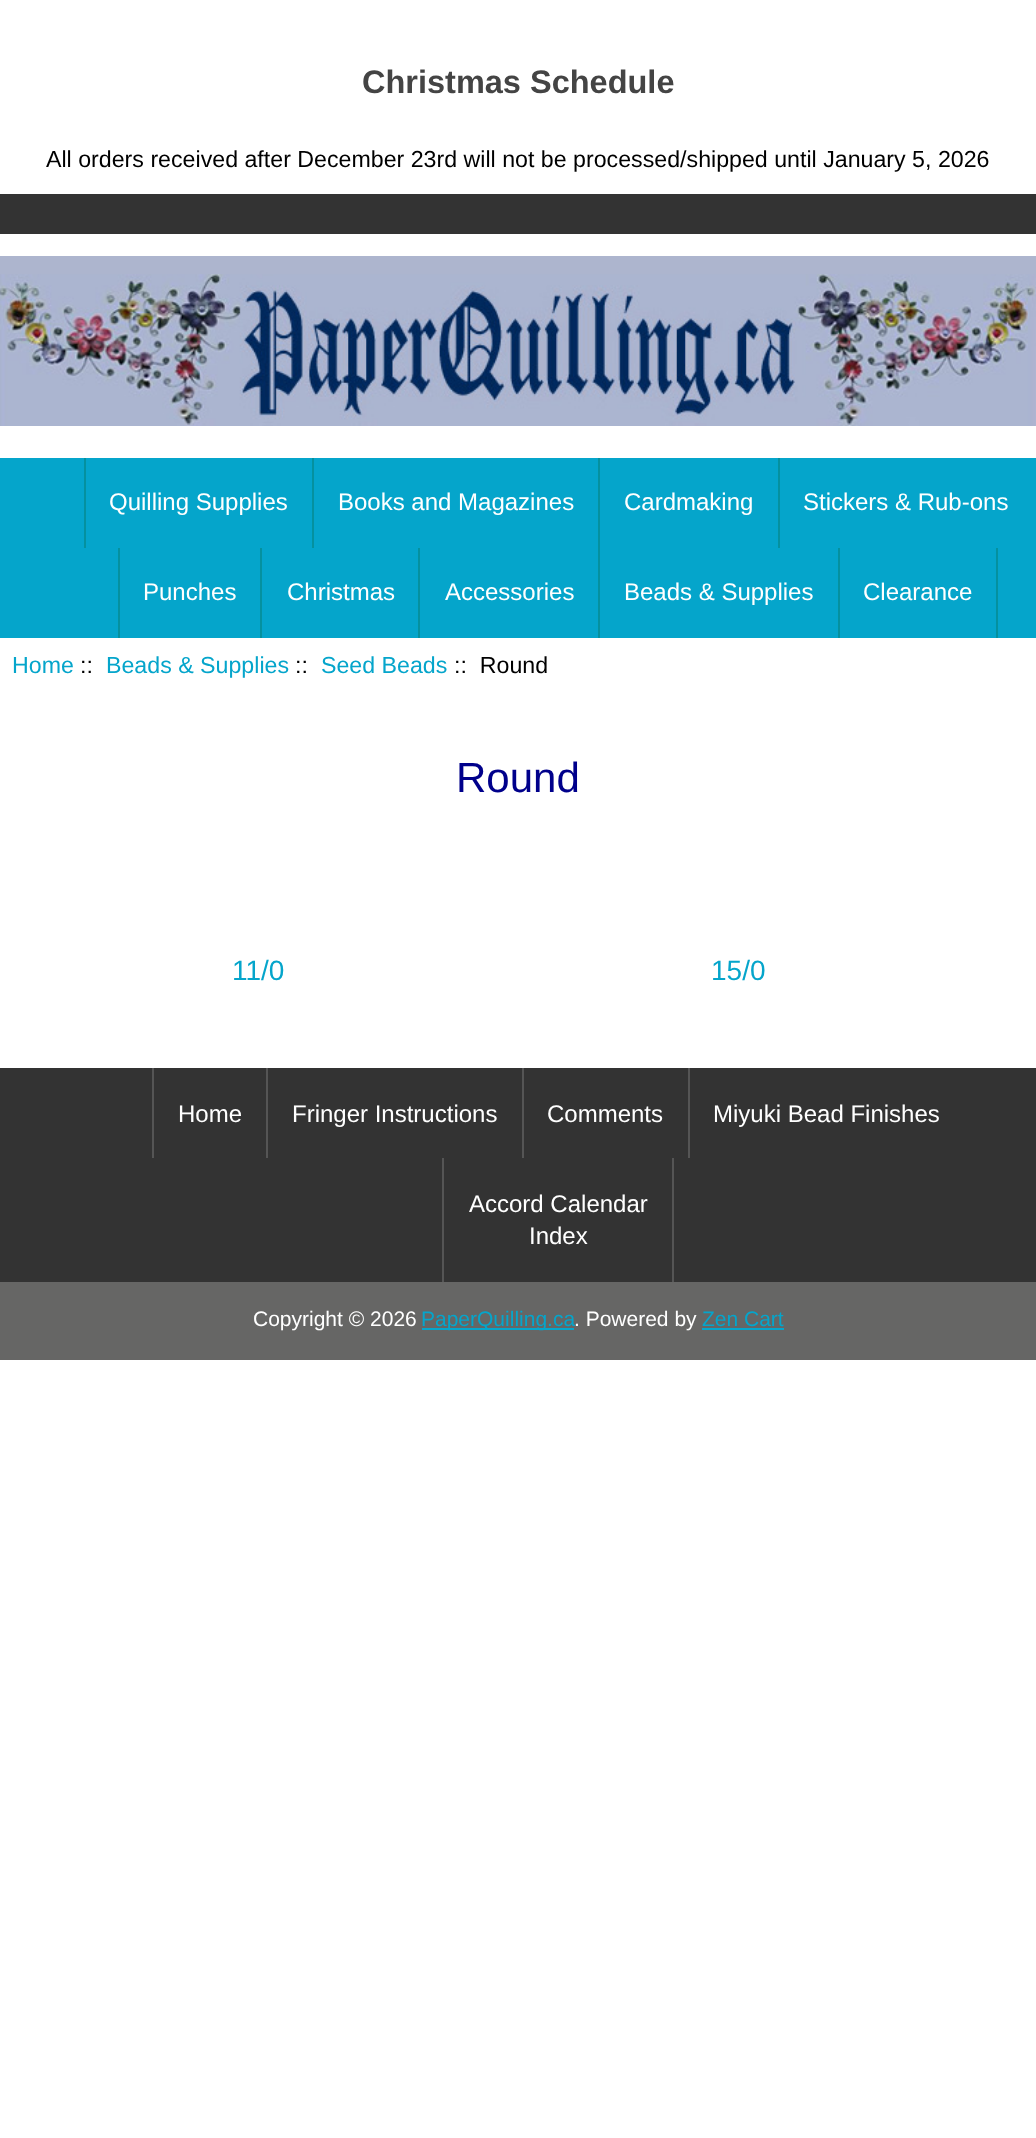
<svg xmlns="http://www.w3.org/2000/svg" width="1036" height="2138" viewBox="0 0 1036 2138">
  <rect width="100%" height="100%" fill="rgb(255,255,255)"/>
  <text x="362" y="93" font-family="Liberation Sans" font-size="32.5" font-weight="bold" fill="rgb(68,68,68)">Christmas Schedule</text>
  <text x="46" y="167" font-family="Liberation Sans" font-size="23.2" fill="rgb(0,0,0)">All orders received after December 23rd will not be processed/shipped until January 5, 2026</text>
  <rect x="0" y="194" width="1036" height="40" fill="rgb(51,51,51)"/>
  <image x="0" y="256" width="1036" height="170" href="pic1.png"/>
  <rect x="0" y="458" width="1036" height="180" fill="rgb(5,165,203)"/>
  <rect x="84" y="458" width="2" height="90" fill="rgb(5,145,159)"/>
  <text x="109" y="510" font-family="Liberation Sans" font-size="24" fill="rgb(255,255,255)">Quilling Supplies</text>
  <rect x="312" y="458" width="2" height="90" fill="rgb(5,145,159)"/>
  <text x="338" y="510" font-family="Liberation Sans" font-size="24" fill="rgb(255,255,255)">Books and Magazines</text>
  <rect x="598" y="458" width="2" height="180" fill="rgb(5,145,159)"/>
  <text x="624" y="510" font-family="Liberation Sans" font-size="24" fill="rgb(255,255,255)">Cardmaking</text>
  <rect x="778" y="458" width="2" height="90" fill="rgb(5,145,159)"/>
  <text x="803" y="510" font-family="Liberation Sans" font-size="24" fill="rgb(255,255,255)">Stickers &amp; Rub-ons</text>
  <rect x="118" y="548" width="2" height="90" fill="rgb(5,145,159)"/>
  <text x="143" y="600" font-family="Liberation Sans" font-size="24" fill="rgb(255,255,255)">Punches</text>
  <rect x="260" y="548" width="2" height="90" fill="rgb(5,145,159)"/>
  <text x="287" y="600" font-family="Liberation Sans" font-size="24" fill="rgb(255,255,255)">Christmas</text>
  <rect x="418" y="548" width="2" height="90" fill="rgb(5,145,159)"/>
  <g font-family="Liberation Sans" font-size="24" fill="rgb(255,255,255)">
    <text x="445" y="600">Accessories</text>
    <text x="624" y="600">Beads &amp; Supplies</text>
  </g>
  <rect x="996" y="548" width="2" height="90" fill="rgb(5,145,159)"/>
  <rect x="838" y="548" width="2" height="90" fill="rgb(5,145,159)"/>
  <text x="863" y="600" font-family="Liberation Sans" font-size="24" fill="rgb(255,255,255)">Clearance</text>
  <text x="12" y="673" font-family="Liberation Sans" font-size="23.2" fill="rgb(5,165,203)">Home</text>
  <text x="80" y="673" font-family="Liberation Sans" font-size="23.2" fill="rgb(0,0,0)">::</text>
  <text x="106" y="673" font-family="Liberation Sans" font-size="23.2" fill="rgb(5,165,203)">Beads &amp; Supplies</text>
  <text x="295" y="673" font-family="Liberation Sans" font-size="23.2" fill="rgb(0,0,0)">::</text>
  <text x="321" y="673" font-family="Liberation Sans" font-size="23.2" fill="rgb(5,165,203)">Seed Beads</text>
  <text x="454" y="673" font-family="Liberation Sans" font-size="23.2" fill="rgb(0,0,0)" xml:space="preserve">::  Round</text>
  <text x="456" y="792" font-family="Liberation Sans" font-size="42" fill="rgb(0,0,139)">Round</text>
  <g font-family="Liberation Sans" font-size="28" fill="rgb(5,165,203)">
    <text x="232" y="980">11/0</text>
    <text x="711" y="980">15/0</text>
  </g>
  <rect x="0" y="1068" width="1036" height="214" fill="rgb(51,51,51)"/>
  <rect x="152" y="1068" width="2" height="90" fill="rgb(85,85,85)"/>
  <text x="178" y="1122" font-family="Liberation Sans" font-size="24" fill="rgb(255,255,255)">Home</text>
  <rect x="266" y="1068" width="2" height="90" fill="rgb(85,85,85)"/>
  <text x="292" y="1122" font-family="Liberation Sans" font-size="24" fill="rgb(255,255,255)">Fringer Instructions</text>
  <rect x="522" y="1068" width="2" height="90" fill="rgb(85,85,85)"/>
  <text x="547" y="1122" font-family="Liberation Sans" font-size="24" fill="rgb(255,255,255)">Comments</text>
  <rect x="688" y="1068" width="2" height="90" fill="rgb(85,85,85)"/>
  <text x="713" y="1122" font-family="Liberation Sans" font-size="24" fill="rgb(255,255,255)">Miyuki Bead Finishes</text>
  <rect x="672" y="1158" width="2" height="124" fill="rgb(85,85,85)"/>
  <rect x="442" y="1158" width="2" height="124" fill="rgb(85,85,85)"/>
  <g font-family="Liberation Sans" font-size="24" fill="rgb(255,255,255)">
    <text x="469" y="1212">Accord Calendar</text>
    <text x="529" y="1244">Index</text>
  </g>
  <rect x="0" y="1282" width="1036" height="78" fill="rgb(102,102,101)"/>
  <text x="253" y="1326" font-family="Liberation Sans" font-size="21" fill="rgb(255,255,255)">Copyright © 2026</text>
  <rect x="422" y="1328" width="152" height="2" fill="rgb(5,165,203)"/>
  <text x="421" y="1326" font-family="Liberation Sans" font-size="21" fill="rgb(5,165,203)">PaperQuilling.ca</text>
  <text x="574" y="1326" font-family="Liberation Sans" font-size="21" fill="rgb(255,255,255)">. Powered by</text>
  <text x="702" y="1326" font-family="Liberation Sans" font-size="21" fill="rgb(5,165,203)">Zen Cart</text>
  <rect x="702" y="1328" width="82" height="2" fill="rgb(5,165,203)"/>
</svg>
